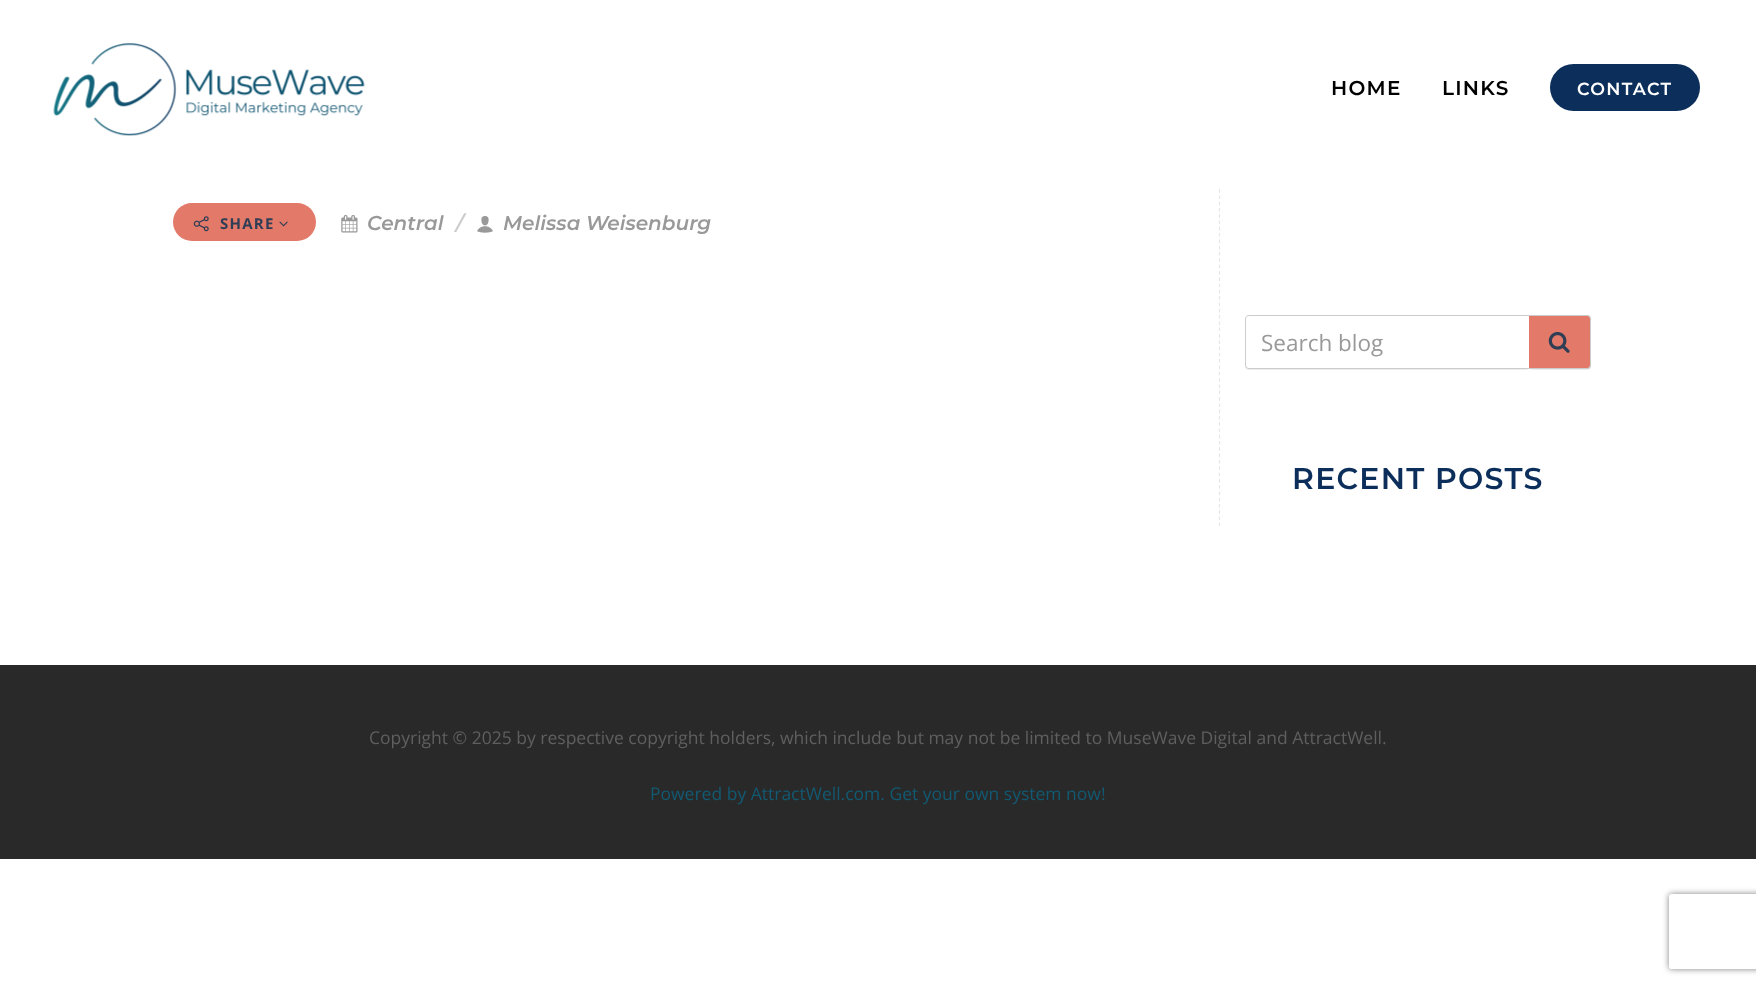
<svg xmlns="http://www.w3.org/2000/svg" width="1756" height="986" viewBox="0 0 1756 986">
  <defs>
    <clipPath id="clip1"><path d="M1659 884H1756V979H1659ZM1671.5 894H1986.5C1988 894 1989 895 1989 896.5V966.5C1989 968 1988 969 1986.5 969H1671.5C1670 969 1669 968 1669 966.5V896.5C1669 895 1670 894 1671.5 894Z" clip-rule="evenodd"/></clipPath>
  </defs>
  <rect width="100%" height="100%" fill="rgb(255,255,255)"/>
  <image x="53" y="43" width="312" height="93" href="pic1.png"/>
  <g font-family="Montserrat" font-size="20" font-weight="600" letter-spacing="1.25" fill="rgb(0,0,0)">
    <text x="1331" y="95">HOME</text>
    <text x="1442" y="95">LINKS</text>
  </g>
  <rect x="1550" y="64" width="150" height="47" rx="23.5" fill="rgb(12,46,91)"/>
  <text x="1577" y="95" font-family="Montserrat" font-size="17.5" font-weight="600" letter-spacing="1.25" fill="rgb(255,255,255)">CONTACT</text>
  <rect x="173" y="203" width="143" height="38" rx="19" fill="rgb(227,121,105)"/>
  <image x="193" y="216" width="16" height="16" href="pic2.png"/>
  <text x="220" y="229" font-family="Open Sans" font-size="15" font-weight="bold" letter-spacing="1.25" fill="rgb(47,62,85)">SHARE</text>
  <image x="279" y="221" width="9" height="6" href="pic3.png"/>
  <image x="341" y="215" width="17" height="18" href="pic4.png"/>
  <text x="367" y="230" font-family="Montserrat" font-size="20" font-weight="600" font-style="italic" fill="rgb(153,153,153)">Central</text>
  <text x="456" y="230" font-family="Montserrat" font-size="20" font-weight="600" font-style="italic" fill="rgb(204,204,204)">/</text>
  <image x="477" y="216" width="16" height="17" href="pic5.png"/>
  <text x="503" y="230" font-family="Montserrat" font-size="20" font-weight="600" font-style="italic" fill="rgb(153,153,153)">Melissa Weisenburg</text>
  <path d="M1219.5 189V526" fill="none" stroke="rgb(231,231,231)" stroke-width="1.2" stroke-dasharray="3.75 2.55"/>
  <rect x="1245" y="316" width="284" height="54" rx="4" fill="rgba(0,0,0,0.07)" filter="blur(0.5px)"/>
  <path d="M1249 315H1529V369H1249C1247 369 1245 367 1245 365V319C1245 317 1247 315 1249 315Z" fill="rgb(255,255,255)"/>
  <path d="M1249 315H1529V369H1249C1247 369 1245 367 1245 365V319C1245 317 1247 315 1249 315ZM1249 316H1529V368H1249C1247 368 1246 366 1246 365V319C1246 317 1247 316 1249 316Z" fill="rgb(204,204,204)" fill-rule="evenodd"/>
  <text x="1261" y="351" font-family="Open Sans" font-size="22.5" fill="rgb(153,153,153)">Search blog</text>
  <rect x="1529" y="316" width="62" height="54" rx="4" fill="rgba(0,0,0,0.07)" filter="blur(0.5px)"/>
  <path d="M1529 316H1587.5C1589 316 1590 317 1590 318.5V365.5C1590 367 1589 368 1587.5 368H1529Z" fill="rgb(227,121,105)"/>
  <path d="M1529 315H1588C1590 315 1591 317 1591 319V365C1591 367 1590 369 1588 369H1529ZM1529 316H1588C1589 316 1590 317 1590 319V365C1590 366 1589 368 1588 368H1529Z" fill="rgb(204,204,204)" fill-rule="evenodd"/>
  <image x="1548" y="332" width="22" height="21" href="pic6.png"/>
  <text x="1292" y="489" font-family="Montserrat" font-size="30" font-weight="600" letter-spacing="1.25" fill="rgb(12,46,91)">RECENT POSTS</text>
  <rect x="0" y="665" width="1756" height="194" fill="rgb(41,41,41)"/>
  <text x="369" y="744" font-family="Open Sans" font-size="17.5" fill="rgb(95,95,95)">Copyright © 2025 by respective copyright holders, which include but may not be limited to MuseWave Digital and AttractWell.</text>
  <text x="650" y="800" font-family="Open Sans" font-size="17.5" fill="rgb(18,89,114)">Powered by AttractWell.com. Get your own system now!</text>
  <g clip-path="url(#clip1)">
    <rect x="1669" y="894" width="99" height="75" rx="2.5" fill="rgb(128,128,128)" filter="blur(3px)"/>
  </g>
</svg>
